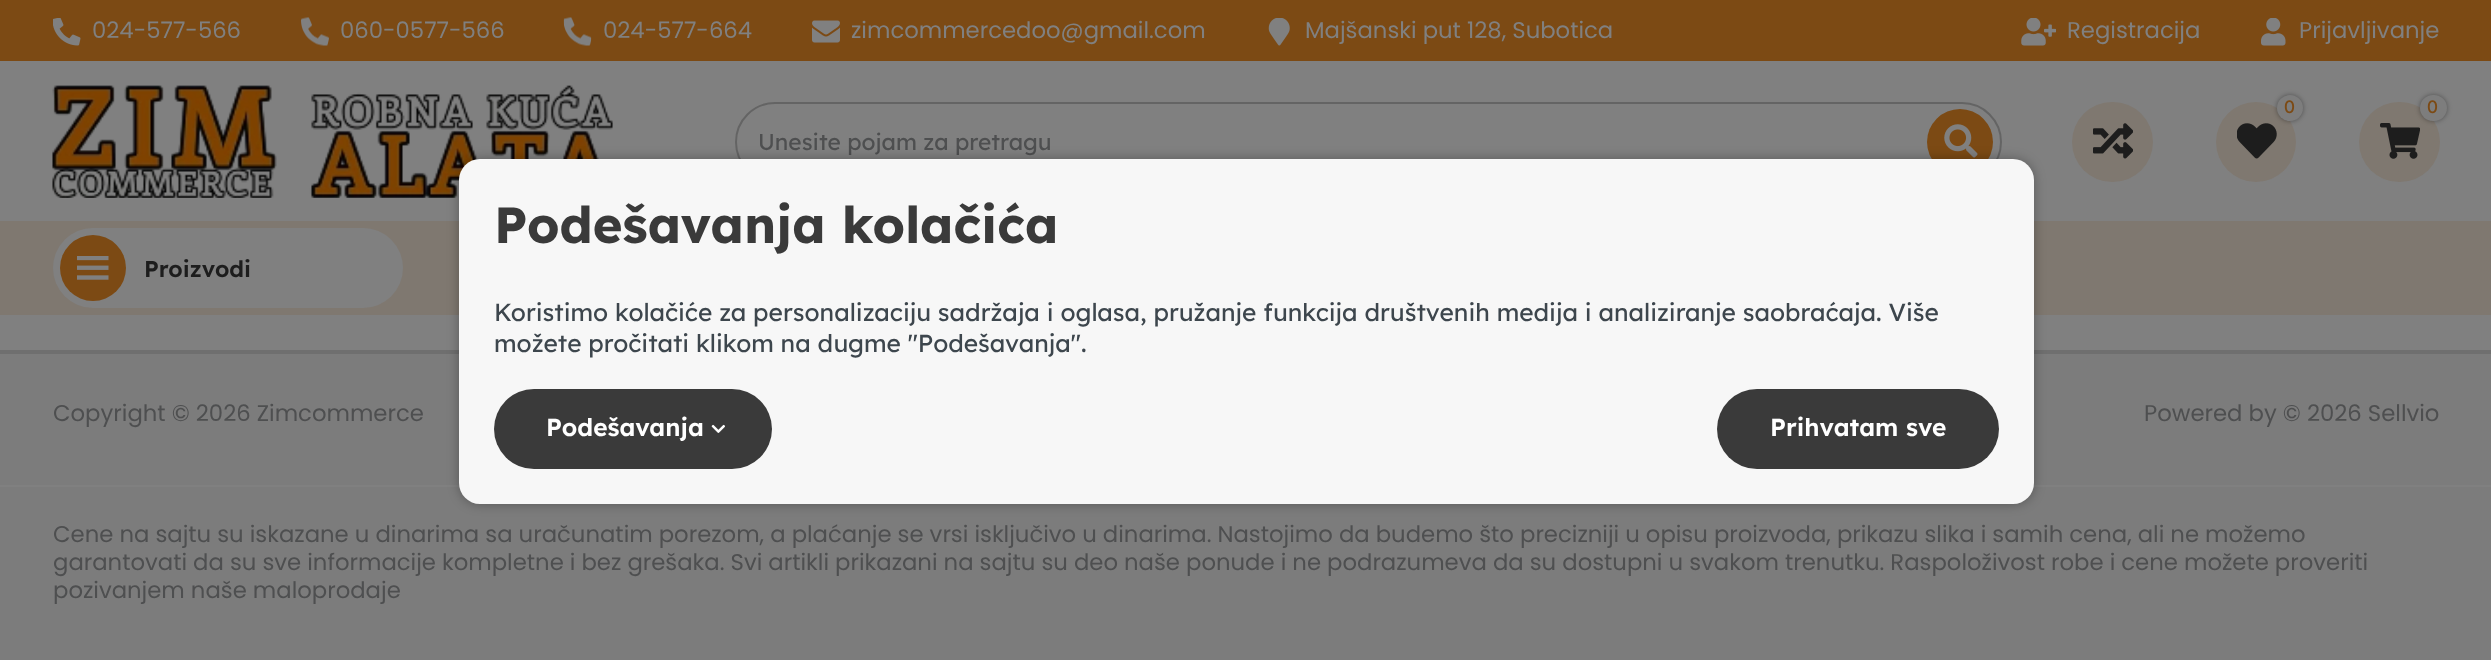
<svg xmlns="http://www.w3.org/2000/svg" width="2491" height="660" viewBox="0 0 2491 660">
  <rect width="100%" height="100%" fill="rgb(128,128,128)"/>
  <rect x="0" y="0" width="2491" height="61" fill="rgb(124,74,20)"/>
  <image x="53" y="18" width="28" height="28" href="pic1.png"/>
  <text x="92" y="38" font-family="Poppins" font-size="22.75" fill="rgb(128,128,128)">024-577-566</text>
  <image x="301" y="17" width="28" height="29" href="pic2.png"/>
  <text x="340" y="38" font-family="Poppins" font-size="22.75" fill="rgb(128,128,128)">060-0577-566</text>
  <image x="563" y="17" width="29" height="29" href="pic3.png"/>
  <text x="603" y="38" font-family="Poppins" font-size="22.75" fill="rgb(128,128,128)">024-577-664</text>
  <image x="812" y="20" width="28" height="23" href="pic4.png"/>
  <text x="851" y="38" font-family="Poppins" font-size="22.75" fill="rgb(128,128,128)">zimcommercedoo@gmail.com</text>
  <image x="1268" y="18" width="22" height="28" href="pic5.png"/>
  <text x="1305" y="38" font-family="Poppins" font-size="22.75" fill="rgb(128,128,128)">Majšanski put 128, Subotica</text>
  <image x="2021" y="18" width="35" height="28" href="pic6.png"/>
  <text x="2067" y="38" font-family="Poppins" font-size="22.75" fill="rgb(128,128,128)">Registracija</text>
  <image x="2261" y="18" width="25" height="28" href="pic7.png"/>
  <text x="2299" y="38" font-family="Poppins" font-size="22.75" fill="rgb(128,128,128)">Prijavljivanje</text>
  <image x="52" y="85" width="561" height="113" href="pic8.png"/>
  <rect x="2072" y="102" width="81" height="80" rx="40" fill="rgb(127,120,112)"/>
  <image x="2093" y="123" width="40" height="36" href="pic9.png"/>
  <circle cx="2256" cy="142" r="40" fill="rgb(127,120,112)"/>
  <image x="2237" y="123" width="40" height="36" href="pic10.png"/>
  <rect x="2277" y="95" width="26" height="26" rx="13" fill="rgba(0,0,0,0.38)" filter="blur(2.5px)"/>
  <circle cx="2290" cy="108" r="13" fill="rgb(125,125,125)"/>
  <text x="2284" y="113" font-family="Lexend Deca" font-size="18" fill="rgb(124,74,20)">0</text>
  <rect x="2359" y="102" width="81" height="80" rx="40" fill="rgb(127,120,112)"/>
  <image x="2380" y="123" width="40" height="36" href="pic11.png"/>
  <rect x="2420" y="95" width="27" height="26" rx="13" fill="rgba(0,0,0,0.38)" filter="blur(2.5px)"/>
  <rect x="2420" y="95" width="27" height="26" rx="13" fill="rgb(125,125,125)"/>
  <text x="2427" y="113" font-family="Lexend Deca" font-size="18" fill="rgb(124,74,20)">0</text>
  <rect x="736" y="103" width="1265" height="78" rx="39" fill="none" stroke="rgb(100,100,100)" stroke-width="2"/>
  <text x="758" y="150" font-family="Lexend Deca" font-size="22.75" fill="rgb(78,79,80)">Unesite pojam za pretragu</text>
  <circle cx="1960" cy="142" r="33" fill="rgb(124,74,20)"/>
  <image x="1944" y="124" width="34" height="34" href="pic12.png"/>
  <rect x="0" y="221" width="2491" height="94" fill="rgb(127,120,112)"/>
  <rect x="53" y="228" width="350" height="80" rx="40" fill="rgb(128,128,128)"/>
  <circle cx="93" cy="268" r="33" fill="rgb(124,74,20)"/>
  <image x="77" y="256" width="32" height="24" href="pic13.png"/>
  <text x="144" y="277" font-family="Lexend Deca" font-size="22.75" font-weight="600" fill="rgb(29,29,29)">Proizvodi</text>
  <rect x="0" y="354" width="2491" height="131" fill="rgb(124,124,124)"/>
  <rect x="0" y="350" width="2491" height="4" fill="rgb(111,111,111)"/>
  <g font-family="Poppins" font-size="22.75" fill="rgb(78,79,80)">
    <text x="53" y="421">Copyright © 2026 Zimcommerce</text>
    <text x="2144" y="421">Powered by © 2026 Sellvio</text>
  </g>
  <rect x="0" y="487" width="2491" height="173" fill="rgb(124,124,124)"/>
  <g font-family="Poppins" font-size="22.75" fill="rgb(78,79,80)">
    <text>
      <tspan x="53" y="542">Cene na sajtu su iskazane u dinarima sa uračunatim porezom, a plaćanje se vrsi isključivo u dinarima. Nastojimo da budemo što precizniji u opisu proizvoda, prikazu slika i samih cena, ali ne možemo</tspan>
      <tspan x="53" y="570">garantovati da su sve informacije kompletne i bez grešaka. Svi artikli prikazani na sajtu su deo naše ponude i ne podrazumeva da su dostupni u svakom trenutku. Raspoloživost robe i cene možete proveriti</tspan>
      <tspan x="53" y="598">pozivanjem naše maloprodaje</tspan>
    </text>
  </g>
  <rect x="459" y="159" width="1575" height="345" rx="21" fill="rgba(0,0,0,0.3)" filter="blur(6px)"/>
  <rect x="459" y="159" width="1575" height="345" rx="21" fill="rgb(247,247,247)"/>
  <text x="494" y="243" font-family="Lexend Deca" font-size="50.75" font-weight="bold" fill="rgb(58,58,58)">Podešavanja kolačića</text>
  <g font-family="Lexend Deca" font-size="24.5" fill="rgb(61,70,77)">
    <text>
      <tspan x="494" y="321">Koristimo kolačiće za personalizaciju sadržaja i oglasa, pružanje funkcija društvenih medija i analiziranje saobraćaja. Više</tspan>
      <tspan x="494" y="352">možete pročitati klikom na dugme "Podešavanja".</tspan>
    </text>
  </g>
  <rect x="494" y="389" width="278" height="80" rx="40" fill="rgb(58,58,58)"/>
  <text x="546" y="436" font-family="Lexend Deca" font-size="24.5" font-weight="600" fill="rgb(255,255,255)">Podešavanja</text>
  <image x="711" y="424" width="14" height="9" href="pic14.png"/>
  <rect x="1717" y="389" width="282" height="80" rx="40" fill="rgb(58,58,58)"/>
  <text x="1770" y="436" font-family="Lexend Deca" font-size="24.5" font-weight="600" fill="rgb(255,255,255)">Prihvatam sve</text>
</svg>
